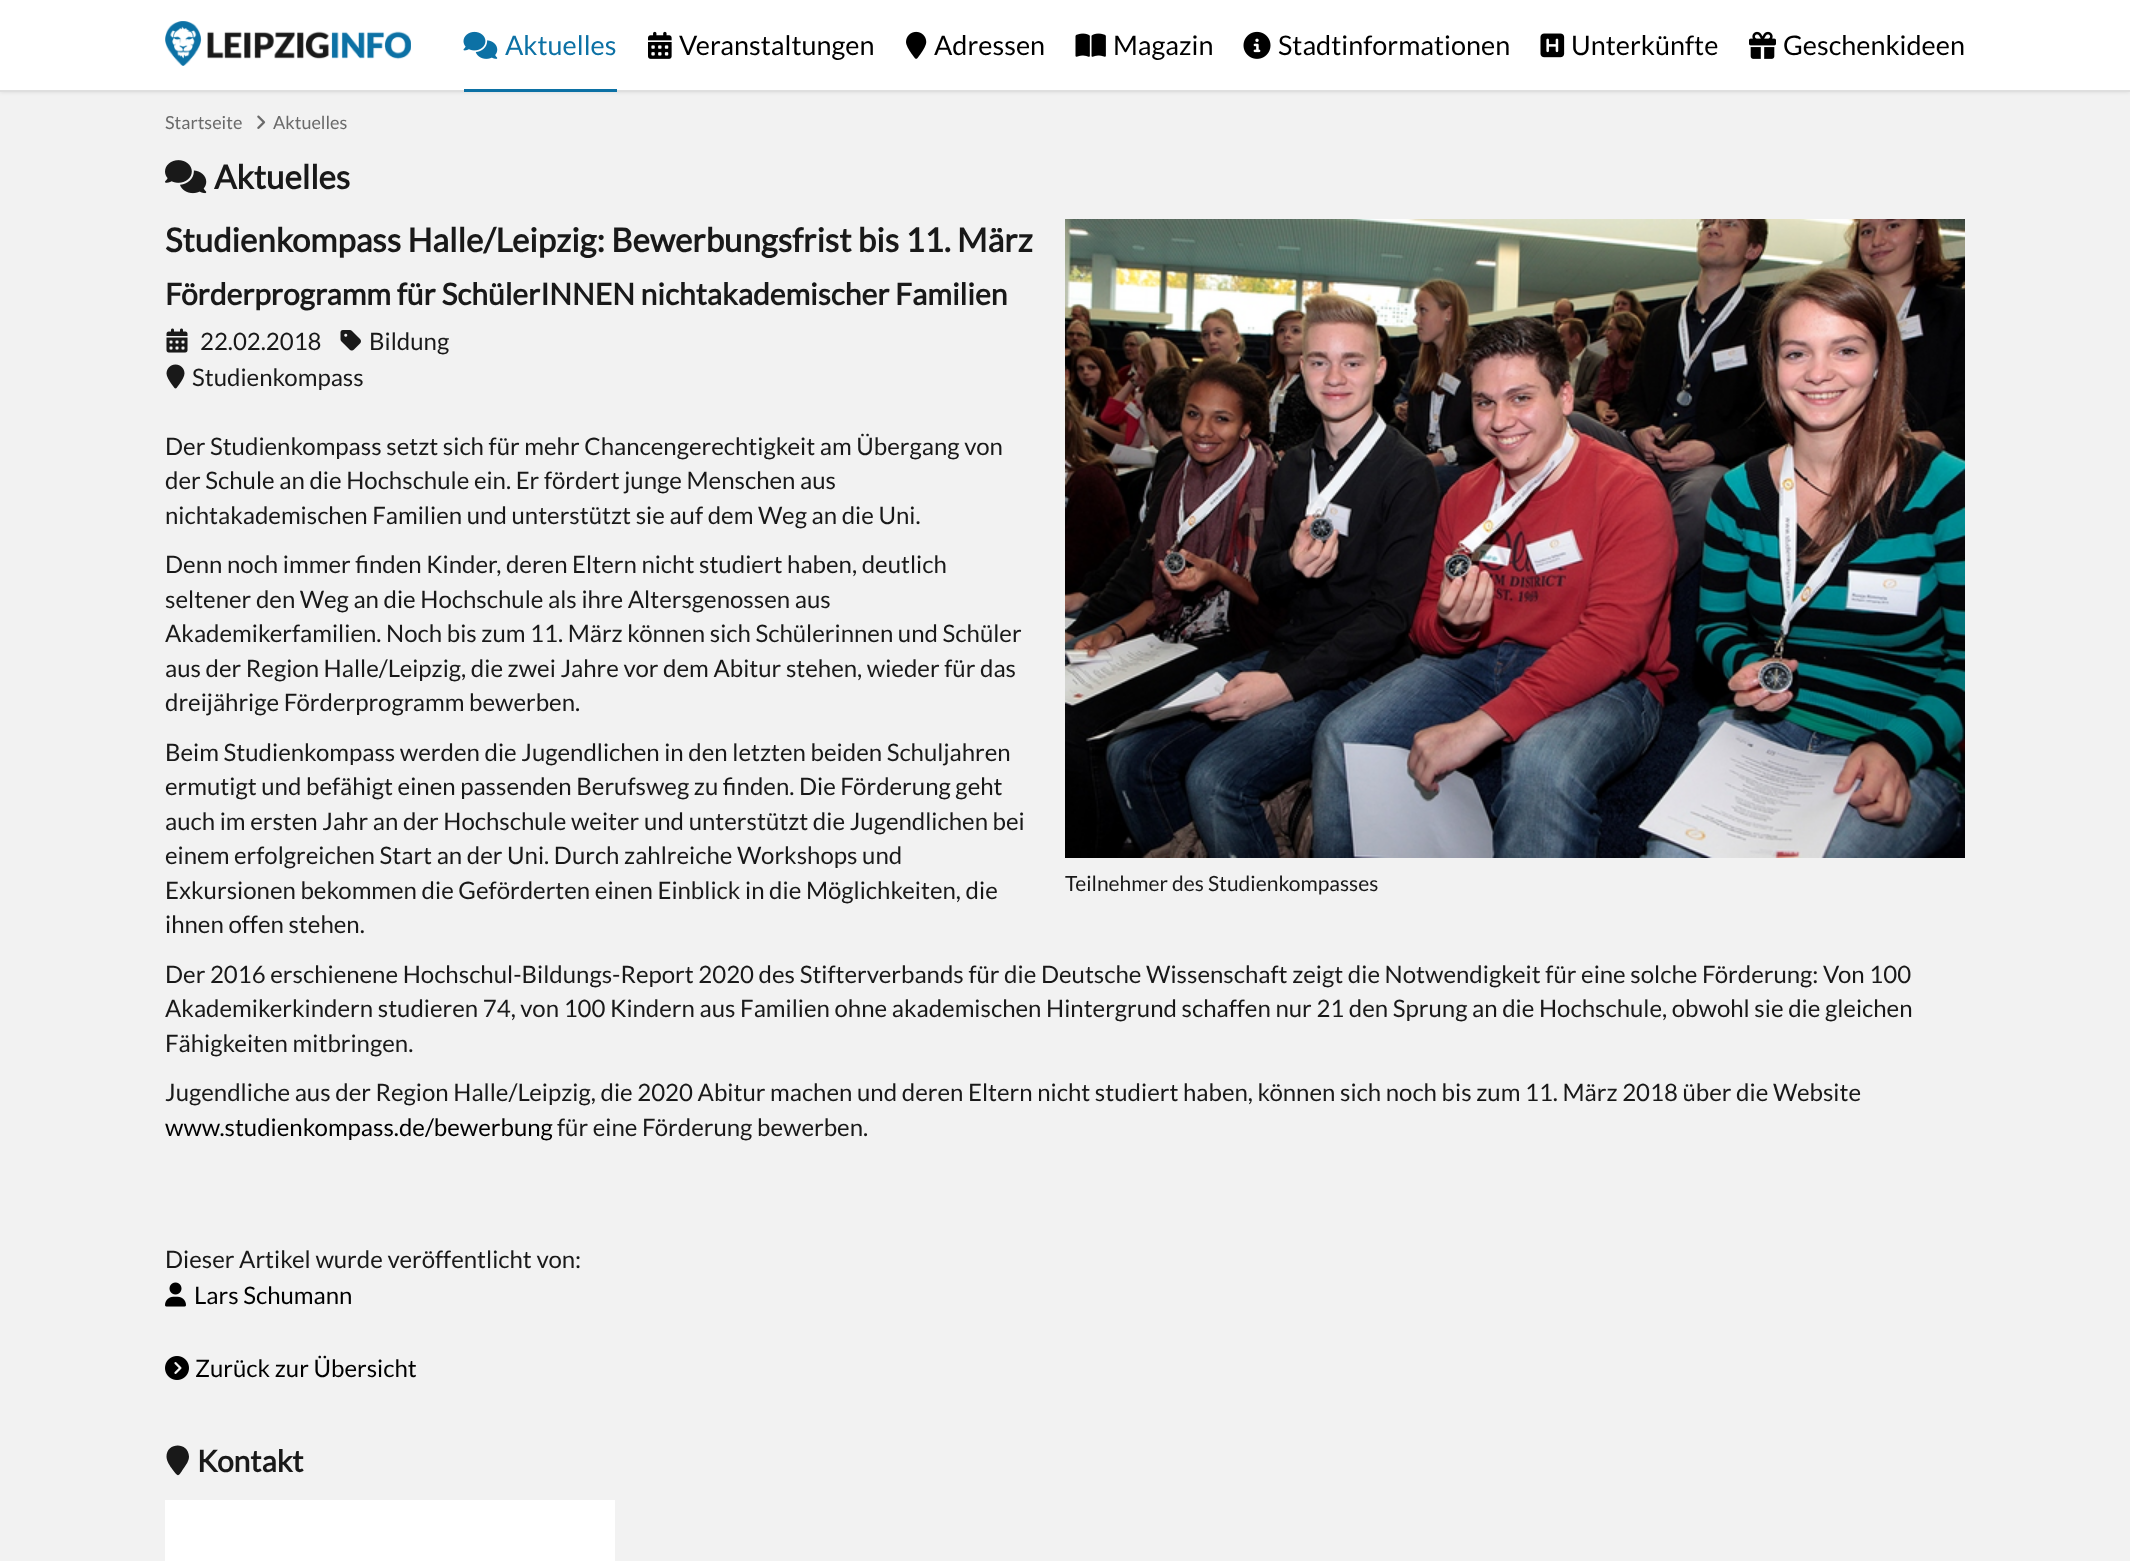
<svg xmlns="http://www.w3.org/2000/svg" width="2130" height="1561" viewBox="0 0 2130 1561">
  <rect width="100%" height="100%" fill="rgb(242,242,242)"/>
  <rect x="0" y="0" width="2130" height="92" fill="rgba(0,0,0,0.1)" filter="blur(2px)"/>
  <rect x="0" y="0" width="2130" height="90" fill="rgb(255,255,255)"/>
  <rect x="0" y="90" width="2130" height="2" fill="rgb(223,223,223)"/>
  <image x="165" y="21" width="246" height="45" href="pic1.png"/>
  <rect x="464" y="89" width="153" height="3" fill="rgb(12,113,165)"/>
  <image x="463" y="31" width="35" height="28" href="pic2.png"/>
  <text x="505" y="55" font-family="Lato" font-size="27" fill="rgb(12,113,165)">Aktuelles</text>
  <image x="648" y="31" width="24" height="28" href="pic3.png"/>
  <text x="679" y="55" font-family="Lato" font-size="27" fill="rgb(0,0,0)">Veranstaltungen</text>
  <image x="906" y="31" width="21" height="28" href="pic4.png"/>
  <text x="934" y="55" font-family="Lato" font-size="27" fill="rgb(0,0,0)">Adressen</text>
  <image x="1075" y="33" width="31" height="24" href="pic5.png"/>
  <text x="1113" y="55" font-family="Lato" font-size="27" fill="rgb(0,0,0)">Magazin</text>
  <image x="1243" y="31" width="28" height="28" href="pic6.png"/>
  <text x="1278" y="55" font-family="Lato" font-size="27" fill="rgb(0,0,0)">Stadtinformationen</text>
  <image x="1540" y="33" width="25" height="25" href="pic7.png"/>
  <text x="1571" y="55" font-family="Lato" font-size="27" fill="rgb(0,0,0)">Unterkünfte</text>
  <image x="1749" y="31" width="27" height="28" href="pic8.png"/>
  <text x="1783" y="55" font-family="Lato" font-size="27" fill="rgb(0,0,0)">Geschenkideen</text>
  <text x="165" y="129" font-family="Lato" font-size="18" fill="rgb(106,106,106)">Startseite</text>
  <image x="257" y="115" width="9" height="14" href="pic9.png"/>
  <text x="273" y="129" font-family="Lato" font-size="18" fill="rgb(106,106,106)">Aktuelles</text>
  <image x="165" y="160" width="42" height="34" href="pic10.png"/>
  <g font-family="Lato" font-size="33" font-weight="bold" fill="rgb(25,25,25)">
    <text x="214" y="189">Aktuelles</text>
    <text x="165" y="252">Studienkompass Halle/Leipzig: Bewerbungsfrist bis 11. März</text>
  </g>
  <text x="165" y="305" font-family="Lato" font-size="30" font-weight="bold" fill="rgb(25,25,25)">Förderprogramm für SchülerINNEN nichtakademischer Familien</text>
  <image x="166" y="328" width="22" height="25" href="pic11.png"/>
  <text x="200" y="350" font-family="Lato" font-size="24" fill="rgb(25,25,25)">22.02.2018</text>
  <image x="340" y="330" width="21" height="21" href="pic12.png"/>
  <text x="369" y="350" font-family="Lato" font-size="24" fill="rgb(25,25,25)">Bildung</text>
  <image x="166" y="364" width="19" height="25" href="pic13.png"/>
  <g font-family="Lato" font-size="24" fill="rgb(25,25,25)">
    <text x="192" y="386">Studienkompass</text>
    <text>
      <tspan x="165" y="455">Der Studienkompass setzt sich für mehr Chancengerechtigkeit am Übergang von</tspan>
      <tspan x="165" y="489">der Schule an die Hochschule ein. Er fördert junge Menschen aus</tspan>
      <tspan x="165" y="524">nichtakademischen Familien und unterstützt sie auf dem Weg an die Uni.</tspan>
    </text>
    <text>
      <tspan x="165" y="573">Denn noch immer finden Kinder, deren Eltern nicht studiert haben, deutlich</tspan>
      <tspan x="165" y="608">seltener den Weg an die Hochschule als ihre Altersgenossen aus</tspan>
      <tspan x="165" y="642">Akademikerfamilien. Noch bis zum 11. März können sich Schülerinnen und Schüler</tspan>
      <tspan x="165" y="677">aus der Region Halle/Leipzig, die zwei Jahre vor dem Abitur stehen, wieder für das</tspan>
      <tspan x="165" y="711">dreijährige Förderprogramm bewerben.</tspan>
    </text>
    <text>
      <tspan x="165" y="761">Beim Studienkompass werden die Jugendlichen in den letzten beiden Schuljahren</tspan>
      <tspan x="165" y="795">ermutigt und befähigt einen passenden Berufsweg zu finden. Die Förderung geht</tspan>
      <tspan x="165" y="830">auch im ersten Jahr an der Hochschule weiter und unterstützt die Jugendlichen bei</tspan>
      <tspan x="165" y="864">einem erfolgreichen Start an der Uni. Durch zahlreiche Workshops und</tspan>
      <tspan x="165" y="899">Exkursionen bekommen die Geförderten einen Einblick in die Möglichkeiten, die</tspan>
      <tspan x="165" y="933">ihnen offen stehen.</tspan>
    </text>
    <text>
      <tspan x="165" y="983">Der 2016 erschienene Hochschul-Bildungs-Report 2020 des Stifterverbands für die Deutsche Wissenschaft zeigt die Notwendigkeit für eine solche Förderung: Von 100</tspan>
      <tspan x="165" y="1017">Akademikerkindern studieren 74, von 100 Kindern aus Familien ohne akademischen Hintergrund schaffen nur 21 den Sprung an die Hochschule, obwohl sie die gleichen</tspan>
      <tspan x="165" y="1052">Fähigkeiten mitbringen.</tspan>
    </text>
    <text x="165" y="1101">Jugendliche aus der Region Halle/Leipzig, die 2020 Abitur machen und deren Eltern nicht studiert haben, können sich noch bis zum 11. März 2018 über die Website</text>
  </g>
  <text x="165" y="1136" font-family="Lato" font-size="24" fill="rgb(0,0,0)">www.studienkompass.de/bewerbung</text>
  <g font-family="Lato" font-size="24" fill="rgb(25,25,25)">
    <text x="557" y="1136">für eine Förderung bewerben.</text>
    <text x="165" y="1268">Dieser Artikel wurde veröffentlicht von:</text>
  </g>
  <image x="165" y="1282" width="21" height="25" href="pic14.png"/>
  <text x="194" y="1304" font-family="Lato" font-size="24" fill="rgb(0,0,0)">Lars Schumann</text>
  <image x="165" y="1356" width="24" height="24" href="pic15.png"/>
  <text x="195" y="1377" font-family="Lato" font-size="24" fill="rgb(0,0,0)">Zurück zur Übersicht</text>
  <image x="1065" y="219" width="900" height="639" href="pic16.png"/>
  <text x="1065" y="891" font-family="Lato" font-size="21" fill="rgb(25,25,25)">Teilnehmer des Studienkompasses</text>
  <path d="M189 1456.5C189 1461 186 1465 183.5 1468.5C178 1477 178.5 1477.5 172.5 1469.5C170 1466 166.5 1461 166.5 1456.5C166.5 1442 188.5 1441.5 189 1456.5Z" fill="rgb(25,25,25)"/>
  <text x="197" y="1472" font-family="Lato" font-size="30" font-weight="bold" fill="rgb(25,25,25)">Kontakt</text>
  <rect x="165" y="1500" width="450" height="61" fill="rgb(255,255,255)"/>
</svg>
